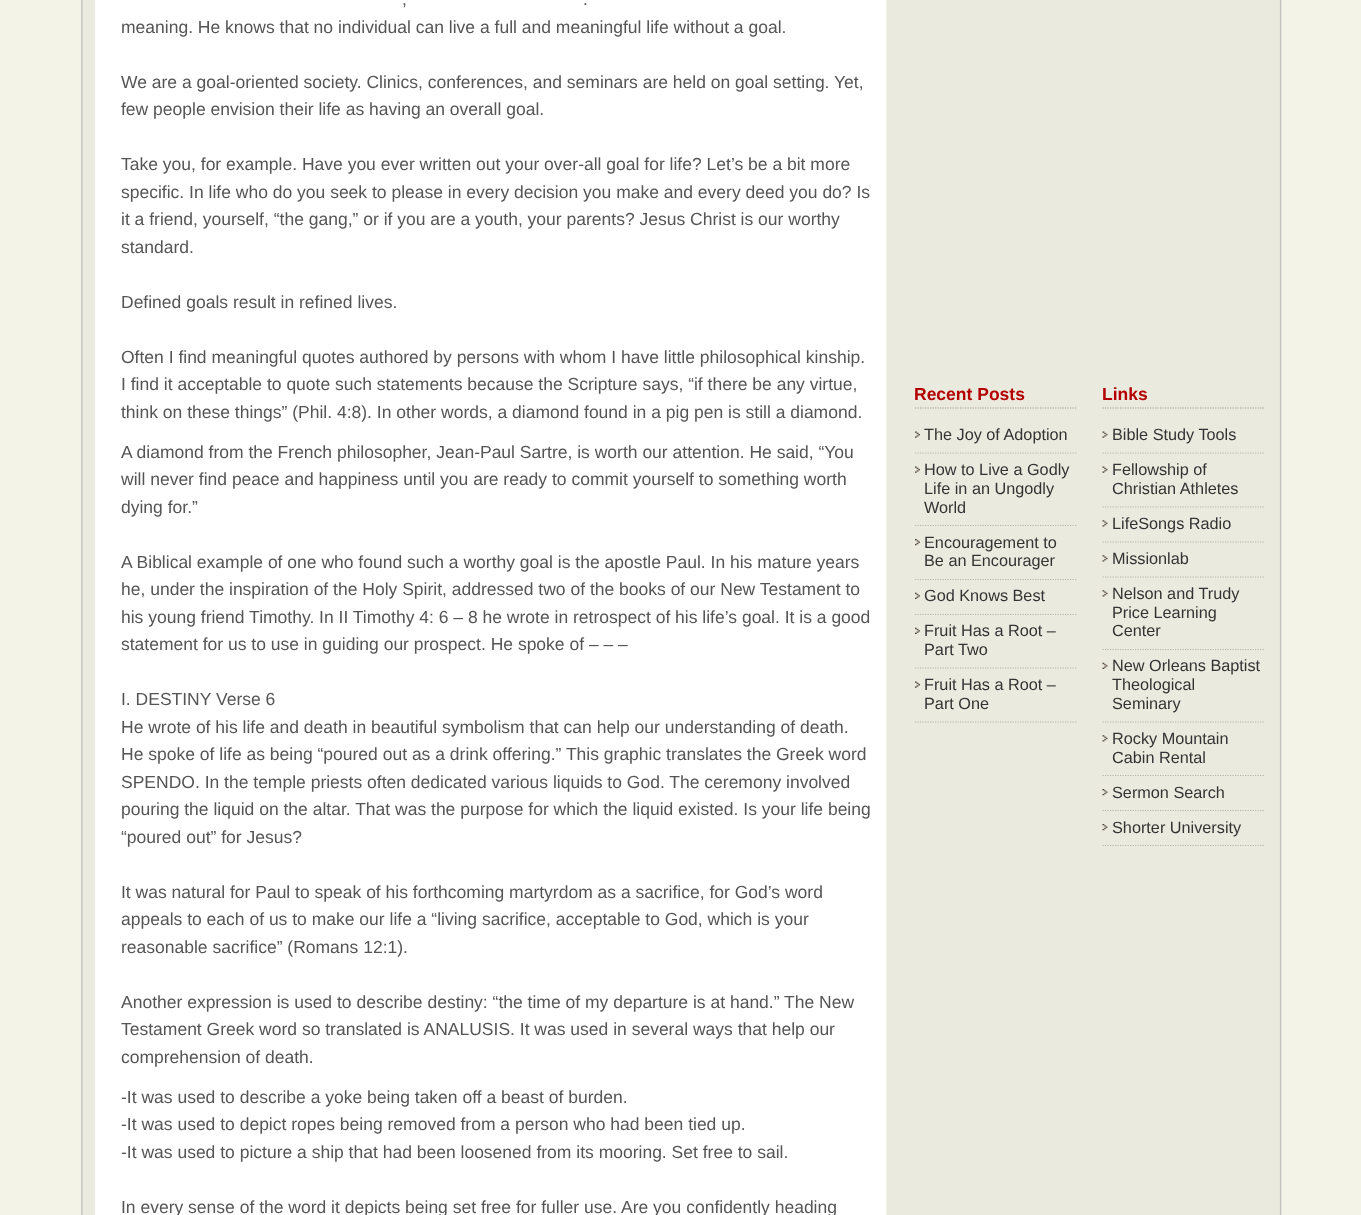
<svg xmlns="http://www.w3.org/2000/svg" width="1361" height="1215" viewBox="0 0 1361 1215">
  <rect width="100%" height="100%" fill="rgb(244,243,232)"/>
  <image x="81" y="0" width="1201" height="1215" href="pic1.png"/>
  <g font-family="Liberation Sans" font-size="17.5" fill="rgb(85,85,85)">
    <text x="402" y="5">,</text>
    <text x="583" y="5">.</text>
    <text x="121" y="33">meaning. He knows that no individual can live a full and meaningful life without a goal.</text>
    <text>
      <tspan x="121" y="88">We are a goal-oriented society. Clinics, conferences, and seminars are held on goal setting. Yet,</tspan>
      <tspan x="121" y="115">few people envision their life as having an overall goal.</tspan>
    </text>
    <text>
      <tspan x="121" y="170">Take you, for example. Have you ever written out your over-all goal for life? Let’s be a bit more</tspan>
      <tspan x="121" y="198">specific. In life who do you seek to please in every decision you make and every deed you do? Is</tspan>
      <tspan x="121" y="225">it a friend, yourself, “the gang,” or if you are a youth, your parents? Jesus Christ is our worthy</tspan>
      <tspan x="121" y="253">standard.</tspan>
    </text>
    <text x="121" y="308">Defined goals result in refined lives.</text>
    <text>
      <tspan x="121" y="363">Often I find meaningful quotes authored by persons with whom I have little philosophical kinship.</tspan>
      <tspan x="121" y="390">I find it acceptable to quote such statements because the Scripture says, “if there be any virtue,</tspan>
      <tspan x="121" y="418">think on these things” (Phil. 4:8). In other words, a diamond found in a pig pen is still a diamond.</tspan>
    </text>
    <text>
      <tspan x="121" y="458">A diamond from the French philosopher, Jean-Paul Sartre, is worth our attention. He said, “You</tspan>
      <tspan x="121" y="485">will never find peace and happiness until you are ready to commit yourself to something worth</tspan>
      <tspan x="121" y="513">dying for.”</tspan>
    </text>
    <text>
      <tspan x="121" y="568">A Biblical example of one who found such a worthy goal is the apostle Paul. In his mature years</tspan>
      <tspan x="121" y="595">he, under the inspiration of the Holy Spirit, addressed two of the books of our New Testament to</tspan>
      <tspan x="121" y="623">his young friend Timothy. In II Timothy 4: 6 – 8 he wrote in retrospect of his life’s goal. It is a good</tspan>
      <tspan x="121" y="650">statement for us to use in guiding our prospect. He spoke of – – –</tspan>
    </text>
    <text>
      <tspan x="121" y="705">I. DESTINY Verse 6</tspan>
      <tspan x="121" y="733">He wrote of his life and death in beautiful symbolism that can help our understanding of death.</tspan>
      <tspan x="121" y="760">He spoke of life as being “poured out as a drink offering.” This graphic translates the Greek word</tspan>
      <tspan x="121" y="788">SPENDO. In the temple priests often dedicated various liquids to God. The ceremony involved</tspan>
      <tspan x="121" y="815">pouring the liquid on the altar. That was the purpose for which the liquid existed. Is your life being</tspan>
      <tspan x="121" y="843">“poured out” for Jesus?</tspan>
    </text>
    <text>
      <tspan x="121" y="898">It was natural for Paul to speak of his forthcoming martyrdom as a sacrifice, for God’s word</tspan>
      <tspan x="121" y="925">appeals to each of us to make our life a “living sacrifice, acceptable to God, which is your</tspan>
      <tspan x="121" y="953">reasonable sacrifice” (Romans 12:1).</tspan>
    </text>
    <text>
      <tspan x="121" y="1008">Another expression is used to describe destiny: “the time of my departure is at hand.” The New</tspan>
      <tspan x="121" y="1035">Testament Greek word so translated is ANALUSIS. It was used in several ways that help our</tspan>
      <tspan x="121" y="1063">comprehension of death.</tspan>
    </text>
    <text>
      <tspan x="121" y="1103">-It was used to describe a yoke being taken off a beast of burden.</tspan>
      <tspan x="121" y="1130">-It was used to depict ropes being removed from a person who had been tied up.</tspan>
      <tspan x="121" y="1158">-It was used to picture a ship that had been loosened from its mooring. Set free to sail.</tspan>
    </text>
    <text x="121" y="1213">In every sense of the word it depicts being set free for fuller use. Are you confidently heading</text>
  </g>
  <path d="M915 408H1077.5" fill="none" stroke="rgb(160,158,140)" stroke-width="1.2" stroke-dasharray="1.25 1.25"/>
  <text x="914" y="400" font-family="Liberation Sans" font-size="17.5" font-weight="bold" fill="rgb(179,0,0)">Recent Posts</text>
  <image x="915" y="431" width="5" height="7" href="pic2.png"/>
  <path d="M915 453H1077.5" fill="none" stroke="rgb(184,183,175)" stroke-width="1.2" stroke-dasharray="1.25 1.25"/>
  <text x="924" y="440" font-family="Liberation Sans" font-size="16.25" fill="rgb(51,51,51)">The Joy of Adoption</text>
  <image x="915" y="466" width="5" height="7" href="pic2.png"/>
  <path d="M915 525.5H1077.5" fill="none" stroke="rgb(184,183,175)" stroke-width="1.2" stroke-dasharray="1.25 1.25"/>
  <g font-family="Liberation Sans" font-size="16.25" fill="rgb(51,51,51)">
    <text>
      <tspan x="924" y="475">How to Live a Godly</tspan>
      <tspan x="924" y="494">Life in an Ungodly</tspan>
      <tspan x="924" y="513">World</tspan>
    </text>
  </g>
  <image x="915" y="539" width="5" height="7" href="pic3.png"/>
  <path d="M915 579.5H1077.5" fill="none" stroke="rgb(184,183,175)" stroke-width="1.2" stroke-dasharray="1.25 1.25"/>
  <g font-family="Liberation Sans" font-size="16.25" fill="rgb(51,51,51)">
    <text>
      <tspan x="924" y="548">Encouragement to</tspan>
      <tspan x="924" y="566">Be an Encourager</tspan>
    </text>
  </g>
  <image x="915" y="592" width="5" height="7" href="pic4.png"/>
  <path d="M915 614.5H1077.5" fill="none" stroke="rgb(184,183,175)" stroke-width="1.2" stroke-dasharray="1.25 1.25"/>
  <text x="924" y="601" font-family="Liberation Sans" font-size="16.25" fill="rgb(51,51,51)">God Knows Best</text>
  <image x="915" y="627" width="5" height="7" href="pic4.png"/>
  <path d="M915 668H1077.5" fill="none" stroke="rgb(184,183,175)" stroke-width="1.2" stroke-dasharray="1.25 1.25"/>
  <g font-family="Liberation Sans" font-size="16.25" fill="rgb(51,51,51)">
    <text>
      <tspan x="924" y="636">Fruit Has a Root –</tspan>
      <tspan x="924" y="655">Part Two</tspan>
    </text>
  </g>
  <image x="915" y="681" width="5" height="7" href="pic2.png"/>
  <path d="M915 722H1077.5" fill="none" stroke="rgb(184,183,175)" stroke-width="1.2" stroke-dasharray="1.25 1.25"/>
  <g font-family="Liberation Sans" font-size="16.25" fill="rgb(51,51,51)">
    <text>
      <tspan x="924" y="690">Fruit Has a Root –</tspan>
      <tspan x="924" y="709">Part One</tspan>
    </text>
  </g>
  <path d="M1102.5 408H1265" fill="none" stroke="rgb(160,158,140)" stroke-width="1.2" stroke-dasharray="1.25 1.25"/>
  <text x="1102" y="400" font-family="Liberation Sans" font-size="17.5" font-weight="bold" fill="rgb(179,0,0)">Links</text>
  <image x="1102" y="431" width="6" height="7" href="pic5.png"/>
  <path d="M1102.5 453H1265" fill="none" stroke="rgb(184,183,175)" stroke-width="1.2" stroke-dasharray="1.25 1.25"/>
  <text x="1112" y="440" font-family="Liberation Sans" font-size="16.25" fill="rgb(51,51,51)">Bible Study Tools</text>
  <image x="1102" y="466" width="6" height="7" href="pic5.png"/>
  <path d="M1102.5 507H1265" fill="none" stroke="rgb(184,183,175)" stroke-width="1.2" stroke-dasharray="1.25 1.25"/>
  <g font-family="Liberation Sans" font-size="16.25" fill="rgb(51,51,51)">
    <text>
      <tspan x="1112" y="475">Fellowship of</tspan>
      <tspan x="1112" y="494">Christian Athletes</tspan>
    </text>
  </g>
  <image x="1102" y="520" width="6" height="7" href="pic6.png"/>
  <path d="M1102.5 542H1265" fill="none" stroke="rgb(184,183,175)" stroke-width="1.2" stroke-dasharray="1.25 1.25"/>
  <text x="1112" y="529" font-family="Liberation Sans" font-size="16.25" fill="rgb(51,51,51)">LifeSongs Radio</text>
  <image x="1102" y="555" width="6" height="7" href="pic6.png"/>
  <path d="M1102.5 577H1265" fill="none" stroke="rgb(184,183,175)" stroke-width="1.2" stroke-dasharray="1.25 1.25"/>
  <text x="1112" y="564" font-family="Liberation Sans" font-size="16.25" fill="rgb(51,51,51)">Missionlab</text>
  <image x="1102" y="590" width="6" height="7" href="pic6.png"/>
  <path d="M1102.5 649.5H1265" fill="none" stroke="rgb(184,183,175)" stroke-width="1.2" stroke-dasharray="1.25 1.25"/>
  <g font-family="Liberation Sans" font-size="16.25" fill="rgb(51,51,51)">
    <text>
      <tspan x="1112" y="599">Nelson and Trudy</tspan>
      <tspan x="1112" y="618">Price Learning</tspan>
      <tspan x="1112" y="636">Center</tspan>
    </text>
  </g>
  <image x="1102" y="662" width="6" height="7" href="pic7.png"/>
  <path d="M1102.5 722H1265" fill="none" stroke="rgb(184,183,175)" stroke-width="1.2" stroke-dasharray="1.25 1.25"/>
  <g font-family="Liberation Sans" font-size="16.25" fill="rgb(51,51,51)">
    <text>
      <tspan x="1112" y="671">New Orleans Baptist</tspan>
      <tspan x="1112" y="690">Theological</tspan>
      <tspan x="1112" y="709">Seminary</tspan>
    </text>
  </g>
  <image x="1102" y="735" width="6" height="7" href="pic6.png"/>
  <path d="M1102.5 775.5H1265" fill="none" stroke="rgb(184,183,175)" stroke-width="1.2" stroke-dasharray="1.25 1.25"/>
  <g font-family="Liberation Sans" font-size="16.25" fill="rgb(51,51,51)">
    <text>
      <tspan x="1112" y="744">Rocky Mountain</tspan>
      <tspan x="1112" y="763">Cabin Rental</tspan>
    </text>
  </g>
  <image x="1102" y="789" width="6" height="7" href="pic8.png"/>
  <path d="M1102.5 810.5H1265" fill="none" stroke="rgb(184,183,175)" stroke-width="1.2" stroke-dasharray="1.25 1.25"/>
  <text x="1112" y="798" font-family="Liberation Sans" font-size="16.25" fill="rgb(51,51,51)">Sermon Search</text>
  <image x="1102" y="824" width="6" height="7" href="pic8.png"/>
  <path d="M1102.5 845.5H1265" fill="none" stroke="rgb(184,183,175)" stroke-width="1.2" stroke-dasharray="1.25 1.25"/>
  <text x="1112" y="833" font-family="Liberation Sans" font-size="16.25" fill="rgb(51,51,51)">Shorter University</text>
</svg>
